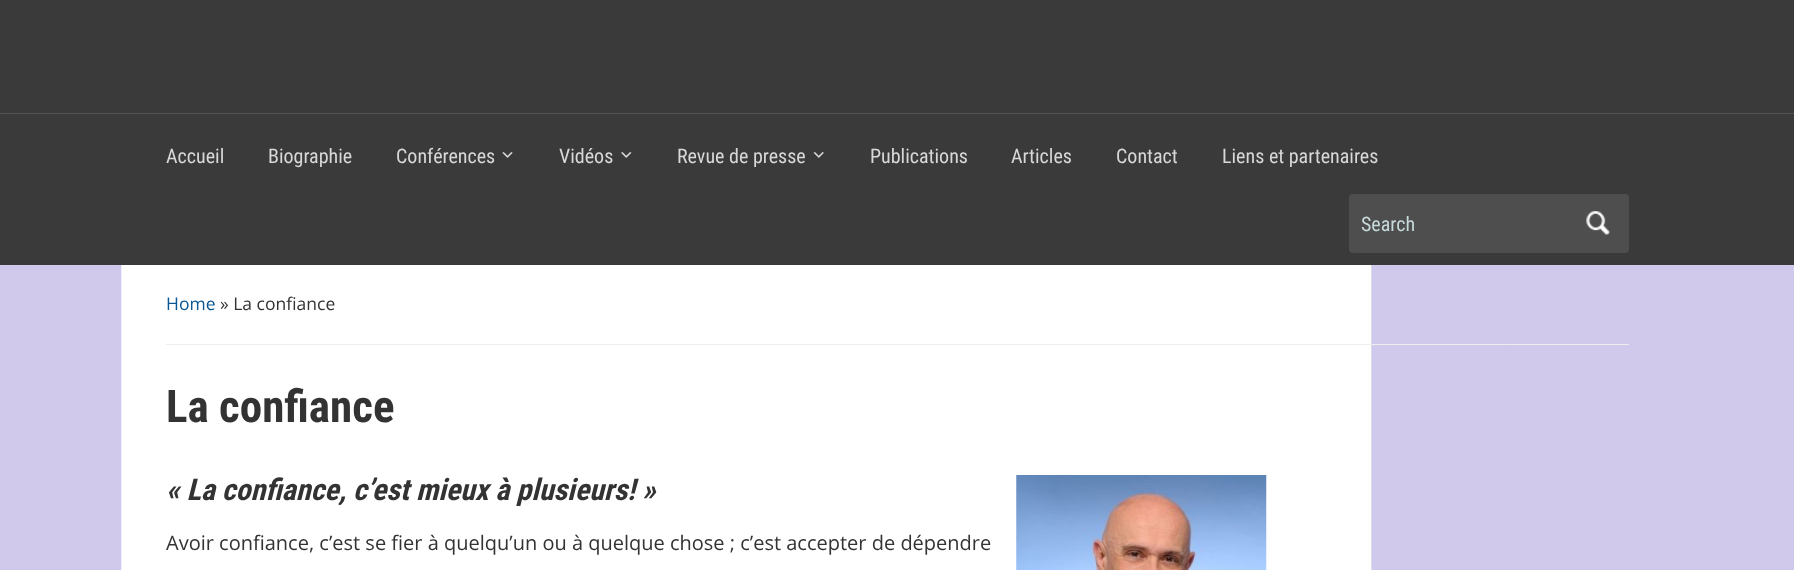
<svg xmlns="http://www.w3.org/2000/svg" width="1794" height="570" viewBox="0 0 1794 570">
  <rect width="100%" height="100%" fill="rgb(255,255,255)"/>
  <image x="0" y="265" width="1794" height="305" href="pic1.png"/>
  <rect x="0" y="0" width="1794" height="265" fill="rgb(58,58,58)"/>
  <rect x="0" y="113" width="1794" height="1" fill="rgb(84,84,84)"/>
  <g font-family="Roboto Condensed" font-size="20" fill="rgb(216,216,216)">
    <text x="166" y="163">Accueil</text>
    <text x="268" y="163">Biographie</text>
    <text x="396" y="163">Conférences</text>
  </g>
  <image x="502" y="152" width="11" height="6" href="pic2.png"/>
  <text x="559" y="163" font-family="Roboto Condensed" font-size="20" fill="rgb(216,216,216)">Vidéos</text>
  <image x="621" y="152" width="11" height="6" href="pic3.png"/>
  <text x="677" y="163" font-family="Roboto Condensed" font-size="20" fill="rgb(216,216,216)">Revue de presse</text>
  <image x="813" y="152" width="11" height="6" href="pic4.png"/>
  <g font-family="Roboto Condensed" font-size="20" fill="rgb(216,216,216)">
    <text x="870" y="163">Publications</text>
    <text x="1011" y="163">Articles</text>
    <text x="1116" y="163">Contact</text>
    <text x="1222" y="163">Liens et partenaires</text>
  </g>
  <rect x="1349" y="194" width="280" height="59" rx="4" fill="rgb(78,78,78)"/>
  <text x="1361" y="231" font-family="Roboto Condensed" font-size="20" fill="rgb(198,217,219)">Search</text>
  <image x="1586" y="211" width="24" height="24" href="pic5.png"/>
  <rect x="166" y="344" width="1463" height="1" fill="rgb(238,238,238)"/>
  <text x="166" y="310" font-family="Open Sans" font-size="17.5" fill="rgb(10,87,148)">Home</text>
  <text x="220" y="310" font-family="Open Sans" font-size="17.5" fill="rgb(51,51,51)">» La confiance</text>
  <text x="166" y="422" font-family="Roboto Condensed" font-size="45" font-weight="bold" fill="rgb(51,51,51)">La confiance</text>
  <text x="166" y="500" font-family="Roboto Condensed" font-size="30" font-weight="bold" font-style="italic" fill="rgb(51,51,51)">« La confiance, c’est mieux à plusieurs! »</text>
  <image x="1016" y="475" width="251" height="95" href="pic6.png"/>
  <text x="166" y="550" font-family="Open Sans" font-size="20" fill="rgb(51,51,51)">Avoir confiance, c’est se fier à quelqu’un ou à quelque chose ; c’est accepter de dépendre</text>
</svg>
